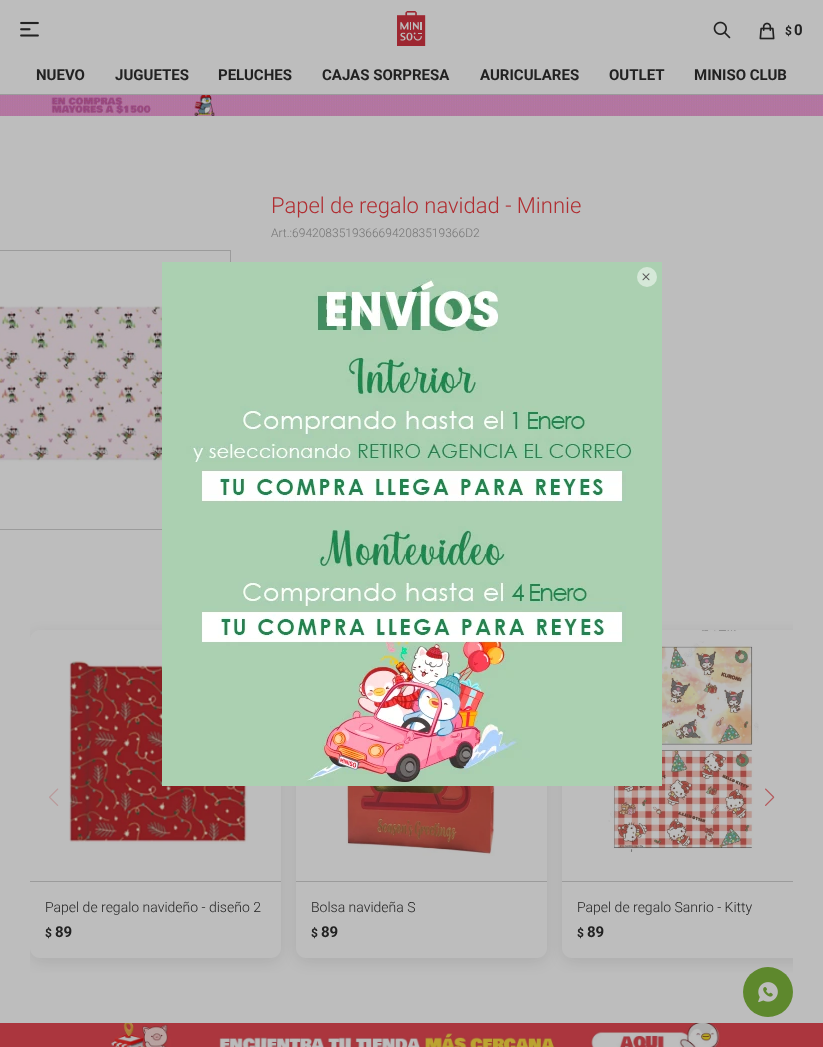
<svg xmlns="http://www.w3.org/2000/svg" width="823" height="1047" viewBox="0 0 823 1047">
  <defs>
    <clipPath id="clip1"><rect x="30" y="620" width="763" height="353"/></clipPath>
    <clipPath id="clip2"><path d="M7 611H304V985H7ZM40 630H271C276.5 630 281 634.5 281 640V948C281 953.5 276.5 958 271 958H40C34.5 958 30 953.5 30 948V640C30 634.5 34.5 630 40 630Z" clip-rule="evenodd"/></clipPath>
    <clipPath id="clip3"><path d="M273 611H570V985H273ZM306 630H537C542.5 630 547 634.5 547 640V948C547 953.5 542.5 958 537 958H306C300.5 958 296 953.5 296 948V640C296 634.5 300.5 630 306 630Z" clip-rule="evenodd"/></clipPath>
    <clipPath id="clip4"><path d="M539 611H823V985H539ZM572 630H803C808.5 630 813 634.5 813 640V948C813 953.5 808.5 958 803 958H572C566.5 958 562 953.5 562 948V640C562 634.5 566.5 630 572 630Z" clip-rule="evenodd"/></clipPath>
  </defs>
  <rect width="100%" height="100%" fill="rgb(189,189,189)"/>
  <image x="20" y="21" width="19" height="16" href="pic1.png"/>
  <image x="397" y="11" width="29" height="35" href="pic2.png"/>
  <image x="713" y="21" width="18" height="18" href="pic3.png"/>
  <image x="759" y="22" width="16" height="18" href="pic4.png"/>
  <text x="785" y="35" font-family="Roboto" font-size="12" font-weight="bold" fill="rgb(34,34,34)">$</text>
  <g font-family="Roboto" font-size="15" font-weight="bold" fill="rgb(34,34,34)">
    <text x="794" y="35">0</text>
    <text x="36" y="80">NUEVO</text>
    <text x="115" y="80">JUGUETES</text>
    <text x="218" y="80">PELUCHES</text>
    <text x="322" y="80">CAJAS SORPRESA</text>
    <text x="480" y="80">AURICULARES</text>
    <text x="609" y="80">OUTLET</text>
    <text x="694" y="80">MINISO CLUB</text>
  </g>
  <rect x="0" y="94" width="823" height="1" fill="rgb(155,155,155)"/>
  <image x="0" y="95" width="823" height="21" href="pic5.png"/>
  <text x="271" y="213" font-family="Roboto" font-size="22" font-weight="300" fill="rgb(176,45,49)">Papel de regalo navidad - Minnie</text>
  <text x="271" y="237" font-family="Roboto" font-size="12" font-weight="300" fill="rgb(117,117,117)">Art.:69420835193666942083519366D2</text>
  <rect x="-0.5" y="250.5" width="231" height="279" fill="none" stroke="rgb(155,155,155)"/>
  <image x="0" y="305" width="162" height="157" href="pic6.png"/>
  <g clip-path="url(#clip1)">
    <g clip-path="url(#clip2)">
      <rect x="31" y="635" width="249" height="326" rx="9" fill="rgba(10,10,10,0.1)" filter="blur(7.5px)"/>
    </g>
  </g>
  <image x="49" y="788" width="10" height="18" href="pic7.png"/>
  <rect x="30" y="881" width="251" height="1" fill="rgb(155,155,155)"/>
  <g clip-path="url(#clip3)">
    <rect x="297" y="635" width="249" height="326" rx="9" fill="rgba(10,10,10,0.1)" filter="blur(7.5px)"/>
  </g>
  <rect x="296" y="881" width="251" height="1" fill="rgb(155,155,155)"/>
  <g clip-path="url(#clip1)">
    <g clip-path="url(#clip4)">
      <rect x="563" y="635" width="249" height="326" rx="9" fill="rgba(10,10,10,0.1)" filter="blur(7.5px)"/>
    </g>
  </g>
  <image x="765" y="788" width="10" height="18" href="pic8.png"/>
  <image x="69" y="660" width="179" height="184" href="pic9.png"/>
  <text x="45" y="912" font-family="Roboto" font-size="14" font-weight="300" fill="rgb(34,34,34)">Papel de regalo navideño - diseño 2</text>
  <text x="45" y="937" font-family="Roboto" font-size="12" font-weight="bold" fill="rgb(34,34,34)">$</text>
  <text x="55" y="937" font-family="Roboto" font-size="15" font-weight="bold" fill="rgb(34,34,34)">89</text>
  <image x="346" y="786" width="149" height="70" href="pic10.png"/>
  <text x="311" y="912" font-family="Roboto" font-size="14" font-weight="300" fill="rgb(34,34,34)">Bolsa navideña S</text>
  <text x="311" y="937" font-family="Roboto" font-size="12" font-weight="bold" fill="rgb(34,34,34)">$</text>
  <text x="321" y="937" font-family="Roboto" font-size="15" font-weight="bold" fill="rgb(34,34,34)">89</text>
  <image x="604" y="630" width="155" height="222" href="pic11.png"/>
  <rect x="562" y="881" width="231" height="1" fill="rgb(155,155,155)"/>
  <text x="577" y="912" font-family="Roboto" font-size="14" font-weight="300" fill="rgb(34,34,34)">Papel de regalo Sanrio - Kitty</text>
  <text x="577" y="937" font-family="Roboto" font-size="12" font-weight="bold" fill="rgb(34,34,34)">$</text>
  <text x="587" y="937" font-family="Roboto" font-size="15" font-weight="bold" fill="rgb(34,34,34)">89</text>
  <image x="0" y="1023" width="823" height="24" href="pic12.png"/>
  <image x="162" y="262" width="500" height="524" href="pic13.png"/>
  <circle cx="647" cy="277" r="10" fill="rgb(213,232,216)"/>
  <image x="642" y="273" width="8" height="8" href="pic14.png"/>
  <circle cx="768" cy="992" r="25" fill="rgb(94,136,45)"/>
  <image x="758" y="982" width="20" height="21" href="pic15.png"/>
</svg>
